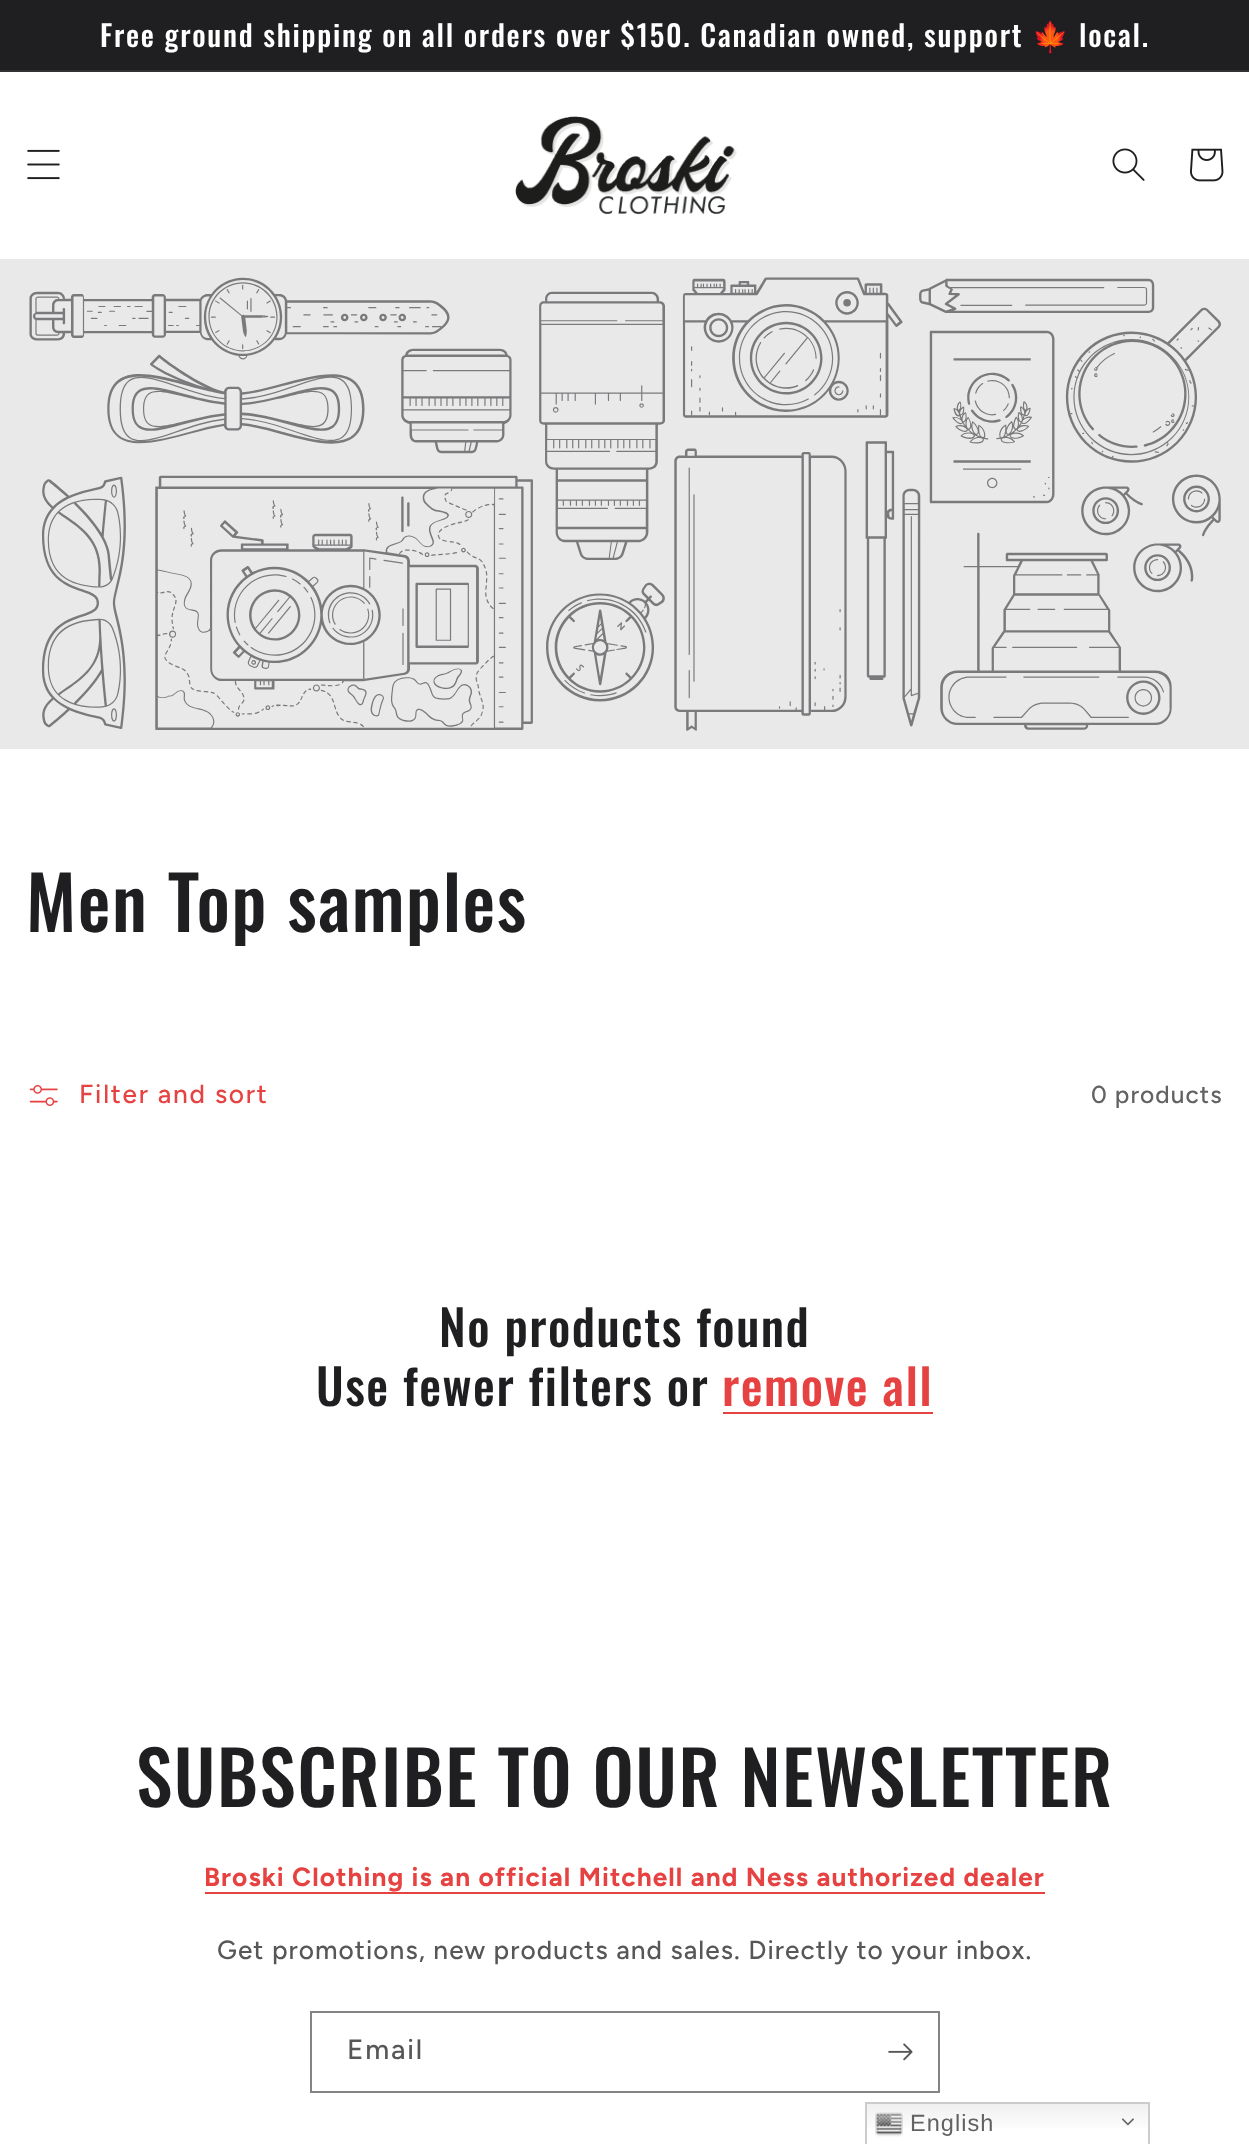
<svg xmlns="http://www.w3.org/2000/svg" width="1249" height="2144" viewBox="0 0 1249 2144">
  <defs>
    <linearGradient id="g1" gradientUnits="userSpaceOnUse" x1="1007" y1="2102" x2="1007" y2="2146"><stop offset="0" stop-color="rgb(239,239,239)"/><stop offset="0.7" stop-color="rgb(255,255,255)"/></linearGradient>
  </defs>
  <rect width="100%" height="100%" fill="rgb(255,255,255)"/>
  <rect x="0" y="0" width="1249" height="70" fill="rgb(31,31,33)"/>
  <rect x="0" y="70" width="1249" height="2" fill="rgb(49,49,51)"/>
  <text x="100" y="47" font-family="Oswald" font-size="29.4" font-weight="500" letter-spacing="1.75" fill="rgb(255,255,255)">Free ground shipping on all orders over $150. Canadian owned, support</text>
  <text x="1032" y="47" font-family="Noto Color Emoji" font-size="29.4" letter-spacing="1.75" fill="rgb(255,255,255)">🍁</text>
  <text x="1079" y="47" font-family="Oswald" font-size="29.4" font-weight="500" letter-spacing="1.75" fill="rgb(255,255,255)">local.</text>
  <image x="27" y="149" width="33" height="31" href="pic1.png"/>
  <image x="515" y="116" width="222" height="99" href="pic2.png"/>
  <image x="1112" y="148" width="33" height="33" href="pic3.png"/>
  <image x="1190" y="148" width="34" height="34" href="pic4.png"/>
  <rect x="0" y="259" width="1249" height="490" fill="rgb(233,233,234)"/>
  <image x="29" y="277" width="1192" height="454" href="pic5.png"/>
  <text x="26" y="932" font-family="Oswald" font-size="73.5" font-weight="500" letter-spacing="1.5" fill="rgb(31,31,33)">Men Top samples</text>
  <image x="29" y="1085" width="29" height="21" href="pic6.png"/>
  <text x="79" y="1103" font-family="Figtree" font-size="26.25" font-weight="500" letter-spacing="1.75" fill="rgb(230,66,65)">Filter and sort</text>
  <text x="1091" y="1103" font-family="Figtree" font-size="24.5" font-weight="500" letter-spacing="1.05" fill="rgb(98,98,100)">0 products</text>
  <g font-family="Oswald" font-size="49" font-weight="500" letter-spacing="1.5" fill="rgb(31,31,33)">
    <text x="439" y="1347">No products found</text>
    <text x="316" y="1406">Use fewer filters or</text>
  </g>
  <text x="722" y="1406" font-family="Oswald" font-size="49" font-weight="500" letter-spacing="1.5" fill="rgb(230,66,65)">remove all</text>
  <rect x="723" y="1412" width="210" height="2" fill="rgb(230,66,65)"/>
  <text x="136" y="1807" font-family="Oswald" font-size="73.5" font-weight="500" letter-spacing="1.5" fill="rgb(31,31,33)">SUBSCRIBE TO OUR NEWSLETTER</text>
  <text x="204" y="1886" font-family="Figtree" font-size="26.25" font-weight="bold" letter-spacing="1.05" fill="rgb(230,66,65)">Broski Clothing is an official Mitchell and Ness authorized dealer</text>
  <rect x="205" y="1892" width="840" height="2" fill="rgb(230,66,65)"/>
  <text x="217" y="1959" font-family="Figtree" font-size="26.25" font-weight="500" letter-spacing="1.05" fill="rgb(87,87,89)">Get promotions, new products and sales. Directly to your inbox.</text>
  <rect x="311" y="2012" width="628" height="80" fill="none" stroke="rgb(132,132,133)" stroke-width="2"/>
  <text x="347" y="2059" font-family="Figtree" font-size="28" font-weight="500" letter-spacing="1.75" fill="rgb(87,87,89)">Email</text>
  <image x="888" y="2043" width="25" height="18" href="pic7.png"/>
  <rect x="867" y="2104" width="281" height="24" fill="url(#g1)"/>
  <rect x="866" y="2103" width="283" height="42" fill="none" stroke="rgb(204,204,204)" stroke-width="2"/>
  <image x="875" y="2112" width="28" height="25" href="pic8.png"/>
  <text x="910" y="2131" font-family="Liberation Sans" font-size="23.5" letter-spacing="1.05" fill="rgb(98,98,100)">English</text>
  <image x="1122" y="2118" width="12" height="8" href="pic9.png"/>
</svg>
